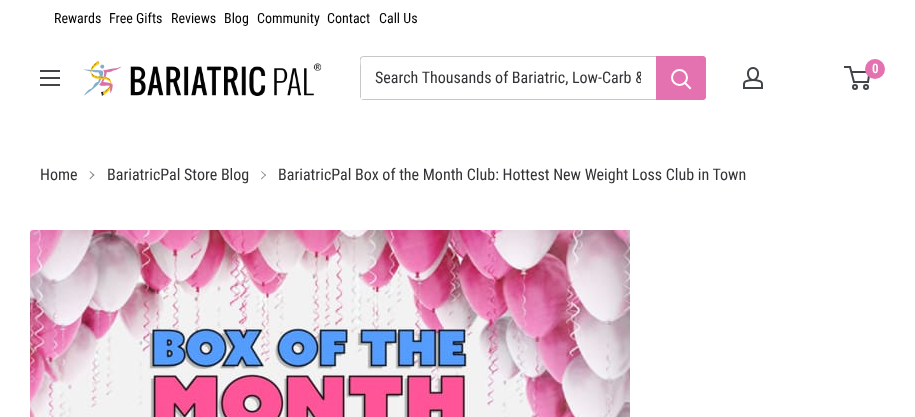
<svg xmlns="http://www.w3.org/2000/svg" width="915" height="417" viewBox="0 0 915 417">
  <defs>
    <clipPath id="clip1"><rect x="375" y="68" width="266" height="19"/></clipPath>
  </defs>
  <rect width="100%" height="100%" fill="rgb(255,255,255)"/>
  <g font-family="Roboto Condensed" font-size="14" fill="rgb(0,0,0)">
    <text x="54" y="23">Rewards</text>
    <text x="109" y="23">Free Gifts</text>
    <text x="171" y="23">Reviews</text>
    <text x="224" y="23">Blog</text>
    <text x="257" y="23">Community</text>
    <text x="327" y="23">Contact</text>
    <text x="379" y="23">Call Us</text>
  </g>
  <image x="83" y="61" width="239" height="35" href="pic1.png"/>
  <image x="743" y="67" width="20" height="22" href="pic2.png"/>
  <circle cx="855" cy="87" r="2" fill="none" stroke="rgb(65,69,72)" stroke-width="2"/>
  <circle cx="866" cy="87" r="2" fill="none" stroke="rgb(65,69,72)" stroke-width="2"/>
  <path d="M851.5 72H869.5L868 82H854L850 67H844" fill="none" stroke="rgb(65,69,72)" stroke-width="2"/>
  <circle cx="875" cy="69" r="10" fill="rgb(228,114,176)"/>
  <text x="872" y="73" font-family="Roboto Condensed" font-size="13" font-weight="600" fill="rgb(255,255,255)">0</text>
  <image x="40" y="70" width="20" height="16" href="pic3.png"/>
  <path d="M361 99L363 100H703L705 99L706 98V59L705 57V90C705 92 707 99 702 99Z" fill="rgb(198,199,200)"/>
  <path d="M364 57H705L703 56H363L361 57L360 58V97L361 99V66C361 64 359 57 364 57Z" fill="rgb(198,199,200)"/>
  <g clip-path="url(#clip1)">
    <text x="375" y="83" font-family="Roboto Condensed" font-size="16" fill="rgb(50,51,54)">Search Thousands of Bariatric, Low-Carb &amp;</text>
  </g>
  <path d="M656 56H703C704.5 56 706 57.5 706 59V97C706 98.5 704.5 100 703 100H656Z" fill="rgb(228,114,176)"/>
  <path d="M690 88L685 83" fill="none" stroke="rgb(255,255,255)" stroke-width="2" stroke-linecap="square"/>
  <circle cx="679.5" cy="77.5" r="7.5" fill="none" stroke="rgb(255,255,255)" stroke-width="2"/>
  <text x="40" y="180" font-family="Roboto Condensed" font-size="16" fill="rgb(50,51,54)">Home</text>
  <path d="M89.5 171.5L90 171L94.5 175L93.5 176Z" fill="rgb(137,138,138)"/>
  <path d="M89.5 178.5L93.5 174.5L94.5 175L90 179.5Z" fill="rgb(137,138,138)"/>
  <text x="107" y="180" font-family="Roboto Condensed" font-size="16" fill="rgb(50,51,54)">BariatricPal Store Blog</text>
  <path d="M261 171.5L261.5 171L266 175L265.5 176Z" fill="rgb(137,138,138)"/>
  <path d="M261 178.5L265.5 174.5L266 175L261.5 179.5Z" fill="rgb(137,138,138)"/>
  <text x="278" y="180" font-family="Roboto Condensed" font-size="16" fill="rgb(50,51,54)">BariatricPal Box of the Month Club: Hottest New Weight Loss Club in Town</text>
  <image x="30" y="230" width="600" height="187" href="pic4.png"/>
</svg>
